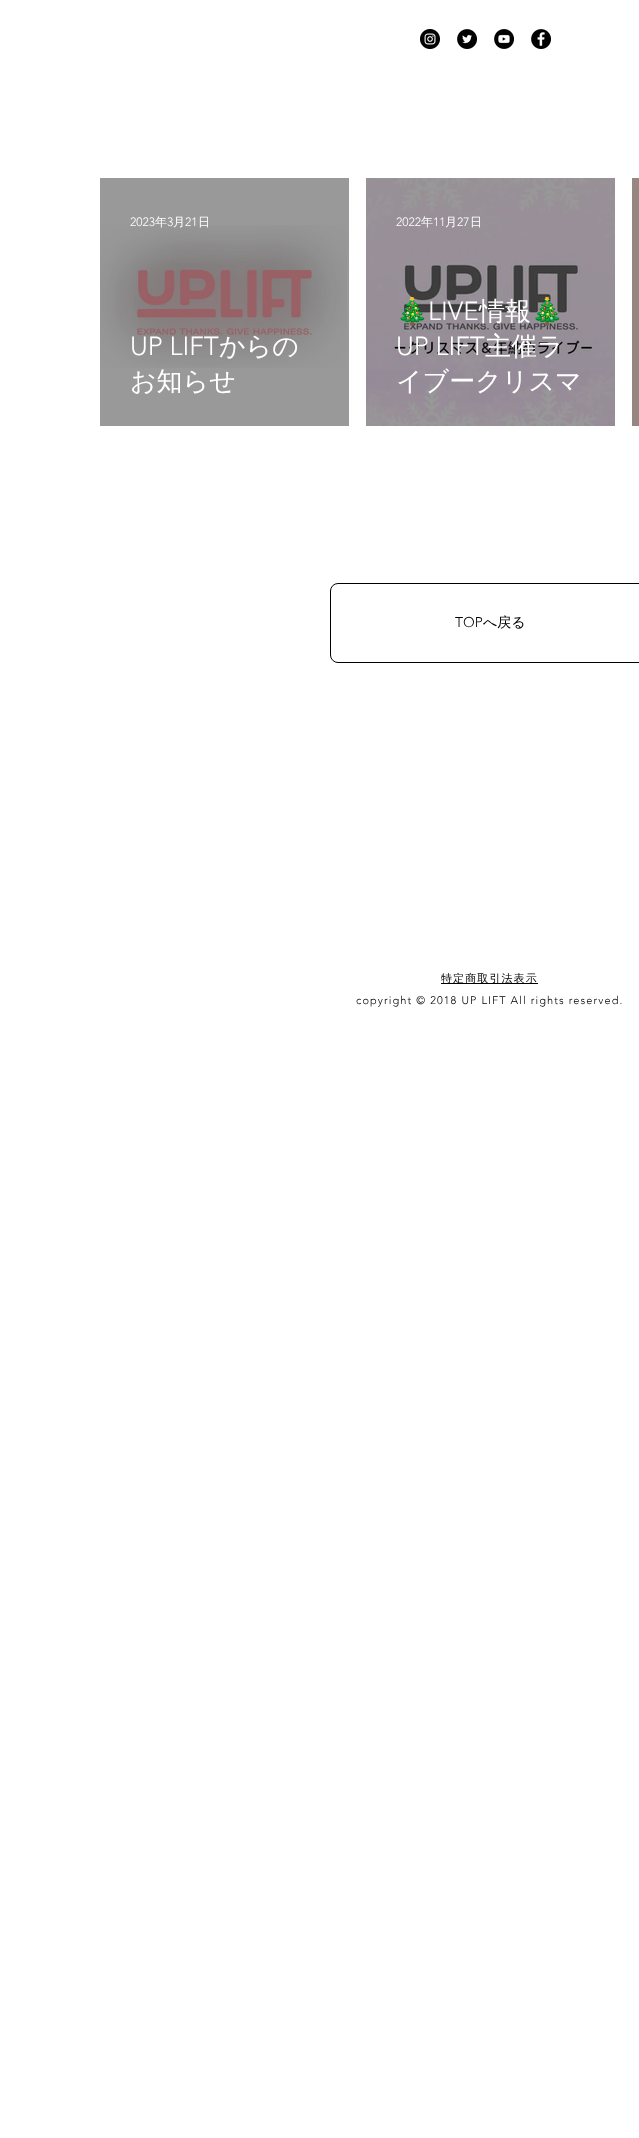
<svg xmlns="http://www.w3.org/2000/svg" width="639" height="2138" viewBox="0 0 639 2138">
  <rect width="100%" height="100%" fill="rgb(255,255,255)"/>
  <rect x="100" y="178" width="249" height="248" fill="rgb(153,153,153)"/>
  <image x="420" y="29" width="20" height="20" href="pic1.png"/>
  <image x="457" y="29" width="20" height="20" href="pic2.png"/>
  <image x="494" y="29" width="20" height="20" href="pic3.png"/>
  <image x="531" y="29" width="20" height="20" href="pic4.png"/>
  <image x="100" y="225" width="247" height="143" href="pic5.png"/>
  <text x="130" y="226" font-family="'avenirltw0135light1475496'" font-size="12" font-weight="300" fill="rgb(255,255,255)">2023</text>
  <text x="155" y="226" font-family="WenQuanYi Zen Hei" font-size="12" font-weight="500" fill="rgb(255,255,255)">年</text>
  <text x="167" y="226" font-family="'avenirltw0135light1475496'" font-size="12" font-weight="300" fill="rgb(255,255,255)">3</text>
  <text x="173" y="226" font-family="WenQuanYi Zen Hei" font-size="12" font-weight="500" fill="rgb(255,255,255)">月</text>
  <text x="185" y="226" font-family="'avenirltw0135light1475496'" font-size="12" font-weight="300" fill="rgb(255,255,255)">21</text>
  <text x="198" y="226" font-family="WenQuanYi Zen Hei" font-size="12" font-weight="500" fill="rgb(255,255,255)">日</text>
  <text x="130" y="355" font-family="'avenirltw0135light1475496'" font-size="26" font-weight="300" fill="rgb(255,255,255)">UP LIFT</text>
  <g font-family="WenQuanYi Zen Hei" font-size="26" font-weight="500" fill="rgb(255,255,255)">
    <text x="219" y="355">からの</text>
    <text x="130" y="390">お知らせ</text>
  </g>
  <image x="137" y="269" width="175" height="66" href="pic6.png"/>
  <image x="366" y="178" width="249" height="248" href="pic7.png"/>
  <text x="396" y="226" font-family="'avenirltw0135light1475496'" font-size="12" font-weight="300" fill="rgb(255,255,255)">2022</text>
  <text x="421" y="226" font-family="WenQuanYi Zen Hei" font-size="12" font-weight="500" fill="rgb(255,255,255)">年</text>
  <text x="433" y="226" font-family="'avenirltw0135light1475496'" font-size="12" font-weight="300" fill="rgb(255,255,255)">11</text>
  <text x="445" y="226" font-family="WenQuanYi Zen Hei" font-size="12" font-weight="500" fill="rgb(255,255,255)">月</text>
  <text x="457" y="226" font-family="'avenirltw0135light1475496'" font-size="12" font-weight="300" fill="rgb(255,255,255)">27</text>
  <text x="470" y="226" font-family="WenQuanYi Zen Hei" font-size="12" font-weight="500" fill="rgb(255,255,255)">日</text>
  <text x="396" y="320" font-family="Noto Color Emoji" font-size="26" fill="rgb(255,255,255)">🎄</text>
  <text x="428" y="320" font-family="'avenirltw0135light1475496'" font-size="26" font-weight="300" fill="rgb(255,255,255)">LIVE</text>
  <text x="479" y="320" font-family="WenQuanYi Zen Hei" font-size="26" font-weight="500" fill="rgb(255,255,255)">情報</text>
  <text x="531" y="320" font-family="Noto Color Emoji" font-size="26" fill="rgb(255,255,255)">🎄</text>
  <text x="396" y="355" font-family="'avenirltw0135light1475496'" font-size="26" font-weight="300" fill="rgb(255,255,255)">UP LIFT</text>
  <g font-family="WenQuanYi Zen Hei" font-size="26" font-weight="500" fill="rgb(255,255,255)">
    <text x="485" y="355">主催ラ</text>
    <text x="396" y="390">イブークリスマ</text>
  </g>
  <image x="632" y="178" width="7" height="12" href="pic8.png"/>
  <rect x="632" y="190" width="7" height="236" fill="rgb(151,134,128)"/>
  <rect x="330.5" y="583.5" width="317" height="79" rx="7.5" fill="none" stroke="rgb(0,0,0)"/>
  <text x="455" y="627" font-family="'avenirltw0135light1475496'" font-size="14" font-weight="300" fill="rgb(0,0,0)">TOP</text>
  <text x="483" y="627" font-family="WenQuanYi Zen Hei" font-size="14" font-weight="500" fill="rgb(0,0,0)">へ戻る</text>
  <rect x="441" y="983" width="97" height="1" fill="rgb(0,0,0)"/>
  <text x="441" y="982" font-family="WenQuanYi Zen Hei" font-size="11" font-weight="500" letter-spacing="1.1" fill="rgb(0,0,0)">特定商取引法表示</text>
  <text x="356" y="1004" font-family="'avenirltw0135light1475496'" font-size="11" font-weight="300" letter-spacing="1.1" fill="rgb(0,0,0)">copyright © 2018 UP LIFT All rights reserved.</text>
</svg>
